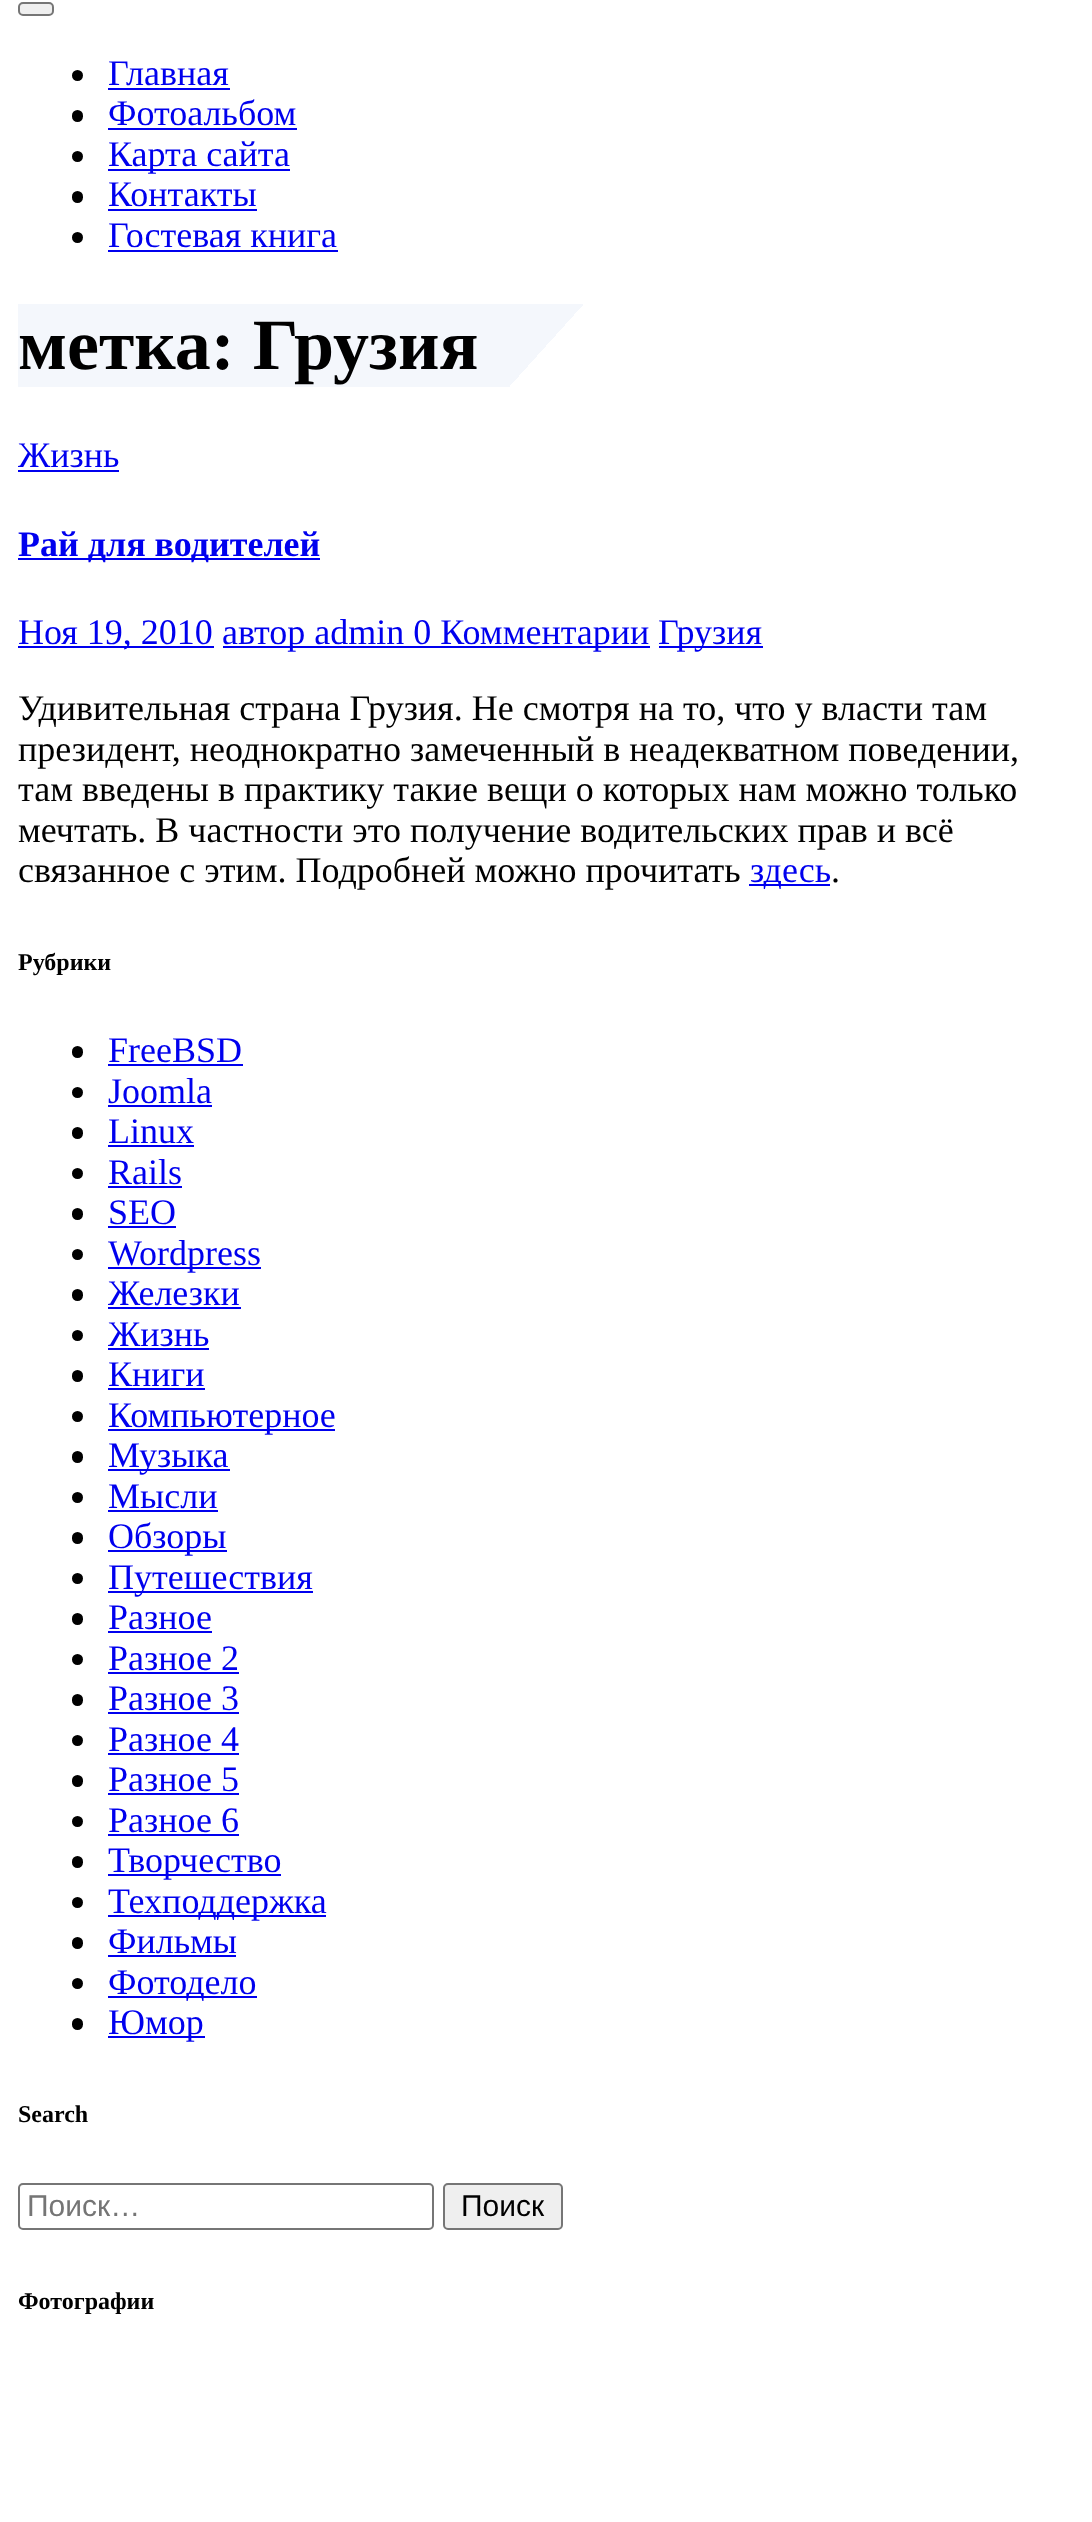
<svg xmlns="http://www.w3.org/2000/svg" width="1092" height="2522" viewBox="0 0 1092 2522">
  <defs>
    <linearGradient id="g1" gradientUnits="userSpaceOnUse" x1="234" y1="64" x2="859" y2="627"><stop offset="0.5" stop-color="rgb(244,247,252)"/><stop offset="0.5" stop-color="rgb(255,255,255)"/></linearGradient>
  </defs>
  <rect width="100%" height="100%" fill="rgb(255,255,255)"/>
  <rect x="19" y="3" width="34" height="12" rx="4" fill="rgb(239,239,239)" stroke="rgb(118,118,118)" stroke-width="2"/>
  <circle cx="77.5" cy="75.5" r="5.5" fill="rgb(0,0,0)"/>
  <text x="108" y="85" font-family="Liberation Serif" font-size="36" fill="rgb(0,0,238)">Главная</text>
  <rect x="108" y="88" width="122" height="2" fill="rgb(0,0,238)"/>
  <rect x="72" y="110" width="11" height="12" rx="5.5" fill="rgb(0,0,0)"/>
  <text x="108" y="125" font-family="Liberation Serif" font-size="36" fill="rgb(0,0,238)">Фотоальбом</text>
  <rect x="108" y="128" width="189" height="2" fill="rgb(0,0,238)"/>
  <circle cx="77.5" cy="156.5" r="5.5" fill="rgb(0,0,0)"/>
  <rect x="108" y="169" width="182" height="2" fill="rgb(0,0,238)"/>
  <text x="108" y="166" font-family="Liberation Serif" font-size="36" fill="rgb(0,0,238)">Карта сайта</text>
  <rect x="72" y="191" width="11" height="12" rx="5.5" fill="rgb(0,0,0)"/>
  <text x="108" y="206" font-family="Liberation Serif" font-size="36" fill="rgb(0,0,238)">Контакты</text>
  <rect x="108" y="209" width="149" height="2" fill="rgb(0,0,238)"/>
  <circle cx="77.5" cy="237.5" r="5.5" fill="rgb(0,0,0)"/>
  <text x="108" y="247" font-family="Liberation Serif" font-size="36" fill="rgb(0,0,238)">Гостевая книга</text>
  <rect x="108" y="250" width="230" height="2" fill="rgb(0,0,238)"/>
  <rect x="18" y="304" width="565" height="83" fill="url(#g1)"/>
  <text x="18" y="369" font-family="Liberation Serif" font-size="72" font-weight="bold" fill="rgb(0,0,0)">метка: Грузия</text>
  <text x="18" y="467" font-family="Liberation Serif" font-size="36" fill="rgb(0,0,238)">Жизнь</text>
  <rect x="18" y="470" width="101" height="2" fill="rgb(0,0,238)"/>
  <rect x="18" y="558" width="302" height="2" fill="rgb(0,0,238)"/>
  <text x="18" y="556" font-family="Liberation Serif" font-size="36" font-weight="bold" fill="rgb(0,0,238)">Рай для водителей</text>
  <rect x="18" y="646" width="196" height="2" fill="rgb(0,0,238)"/>
  <text x="18" y="644" font-family="Liberation Serif" font-size="36" fill="rgb(0,0,238)">Ноя 19, 2010</text>
  <rect x="223" y="646" width="427" height="2" fill="rgb(0,0,238)"/>
  <text x="222" y="644" font-family="Liberation Serif" font-size="36" fill="rgb(0,0,238)">автор admin 0 Комментарии</text>
  <rect x="659" y="646" width="104" height="2" fill="rgb(0,0,238)"/>
  <text x="658" y="644" font-family="Liberation Serif" font-size="36" fill="rgb(0,0,238)">Грузия</text>
  <g font-family="Liberation Serif" font-size="36" fill="rgb(0,0,0)">
    <text>
      <tspan x="18" y="720">Удивительная страна Грузия. Не смотря на то, что у власти там</tspan>
      <tspan x="18" y="761">президент, неоднократно замеченный в неадекватном поведении,</tspan>
      <tspan x="18" y="801">там введены в практику такие вещи о которых нам можно только</tspan>
      <tspan x="18" y="842">мечтать. В частности это получение водительских прав и всё</tspan>
      <tspan x="18" y="882">связанное с этим. Подробней можно прочитать</tspan>
    </text>
  </g>
  <rect x="749" y="884" width="81" height="2" fill="rgb(0,0,238)"/>
  <text x="750" y="882" font-family="Liberation Serif" font-size="36" fill="rgb(0,0,238)">здесь</text>
  <text x="831" y="882" font-family="Liberation Serif" font-size="36" fill="rgb(0,0,0)">.</text>
  <text x="18" y="970" font-family="Liberation Serif" font-size="24" font-weight="bold" fill="rgb(0,0,0)">Рубрики</text>
  <rect x="72" y="1046" width="11" height="12" rx="5.5" fill="rgb(0,0,0)"/>
  <text x="108" y="1062" font-family="Liberation Serif" font-size="36" fill="rgb(0,0,238)">FreeBSD</text>
  <rect x="108" y="1064" width="135" height="2" fill="rgb(0,0,238)"/>
  <circle cx="77.5" cy="1092.5" r="5.5" fill="rgb(0,0,0)"/>
  <text x="108" y="1103" font-family="Liberation Serif" font-size="36" fill="rgb(0,0,238)">Joomla</text>
  <rect x="108" y="1105" width="104" height="2" fill="rgb(0,0,238)"/>
  <rect x="72" y="1127" width="11" height="12" rx="5.5" fill="rgb(0,0,0)"/>
  <text x="108" y="1143" font-family="Liberation Serif" font-size="36" fill="rgb(0,0,238)">Linux</text>
  <rect x="108" y="1145" width="86" height="2" fill="rgb(0,0,238)"/>
  <circle cx="77.5" cy="1173.5" r="5.5" fill="rgb(0,0,0)"/>
  <text x="108" y="1184" font-family="Liberation Serif" font-size="36" fill="rgb(0,0,238)">Rails</text>
  <rect x="108" y="1186" width="74" height="2" fill="rgb(0,0,238)"/>
  <rect x="72" y="1208" width="11" height="12" rx="5.5" fill="rgb(0,0,0)"/>
  <text x="108" y="1224" font-family="Liberation Serif" font-size="36" fill="rgb(0,0,238)">SEO</text>
  <rect x="108" y="1226" width="68" height="2" fill="rgb(0,0,238)"/>
  <circle cx="77.5" cy="1254.5" r="5.5" fill="rgb(0,0,0)"/>
  <rect x="108" y="1267" width="153" height="2" fill="rgb(0,0,238)"/>
  <text x="108" y="1265" font-family="Liberation Serif" font-size="36" fill="rgb(0,0,238)">Wordpress</text>
  <rect x="72" y="1289" width="11" height="12" rx="5.5" fill="rgb(0,0,0)"/>
  <text x="108" y="1305" font-family="Liberation Serif" font-size="36" fill="rgb(0,0,238)">Железки</text>
  <rect x="108" y="1307" width="133" height="2" fill="rgb(0,0,238)"/>
  <circle cx="77.5" cy="1335.5" r="5.5" fill="rgb(0,0,0)"/>
  <text x="108" y="1346" font-family="Liberation Serif" font-size="36" fill="rgb(0,0,238)">Жизнь</text>
  <rect x="108" y="1348" width="101" height="2" fill="rgb(0,0,238)"/>
  <rect x="72" y="1370" width="11" height="12" rx="5.5" fill="rgb(0,0,0)"/>
  <text x="108" y="1386" font-family="Liberation Serif" font-size="36" fill="rgb(0,0,238)">Книги</text>
  <rect x="108" y="1388" width="97" height="2" fill="rgb(0,0,238)"/>
  <circle cx="77.5" cy="1416.5" r="5.5" fill="rgb(0,0,0)"/>
  <rect x="108" y="1429" width="227" height="2" fill="rgb(0,0,238)"/>
  <text x="108" y="1427" font-family="Liberation Serif" font-size="36" fill="rgb(0,0,238)">Компьютерное</text>
  <rect x="72" y="1451" width="11" height="12" rx="5.5" fill="rgb(0,0,0)"/>
  <rect x="108" y="1469" width="122" height="2" fill="rgb(0,0,238)"/>
  <text x="108" y="1467" font-family="Liberation Serif" font-size="36" fill="rgb(0,0,238)">Музыка</text>
  <circle cx="77.5" cy="1497.5" r="5.5" fill="rgb(0,0,0)"/>
  <text x="108" y="1508" font-family="Liberation Serif" font-size="36" fill="rgb(0,0,238)">Мысли</text>
  <rect x="108" y="1510" width="110" height="2" fill="rgb(0,0,238)"/>
  <rect x="72" y="1532" width="11" height="12" rx="5.5" fill="rgb(0,0,0)"/>
  <rect x="108" y="1550" width="119" height="2" fill="rgb(0,0,238)"/>
  <text x="108" y="1548" font-family="Liberation Serif" font-size="36" fill="rgb(0,0,238)">Обзоры</text>
  <circle cx="77.5" cy="1578.5" r="5.5" fill="rgb(0,0,0)"/>
  <rect x="108" y="1591" width="205" height="2" fill="rgb(0,0,238)"/>
  <text x="108" y="1589" font-family="Liberation Serif" font-size="36" fill="rgb(0,0,238)">Путешествия</text>
  <rect x="72" y="1613" width="11" height="12" rx="5.5" fill="rgb(0,0,0)"/>
  <text x="108" y="1629" font-family="Liberation Serif" font-size="36" fill="rgb(0,0,238)">Разное</text>
  <rect x="108" y="1631" width="104" height="2" fill="rgb(0,0,238)"/>
  <circle cx="77.5" cy="1659.5" r="5.5" fill="rgb(0,0,0)"/>
  <text x="108" y="1670" font-family="Liberation Serif" font-size="36" fill="rgb(0,0,238)">Разное 2</text>
  <rect x="108" y="1672" width="131" height="2" fill="rgb(0,0,238)"/>
  <rect x="72" y="1694" width="11" height="12" rx="5.5" fill="rgb(0,0,0)"/>
  <text x="108" y="1710" font-family="Liberation Serif" font-size="36" fill="rgb(0,0,238)">Разное 3</text>
  <rect x="108" y="1712" width="131" height="2" fill="rgb(0,0,238)"/>
  <circle cx="77.5" cy="1740.5" r="5.5" fill="rgb(0,0,0)"/>
  <text x="108" y="1751" font-family="Liberation Serif" font-size="36" fill="rgb(0,0,238)">Разное 4</text>
  <rect x="108" y="1753" width="131" height="2" fill="rgb(0,0,238)"/>
  <rect x="72" y="1775" width="11" height="12" rx="5.5" fill="rgb(0,0,0)"/>
  <text x="108" y="1791" font-family="Liberation Serif" font-size="36" fill="rgb(0,0,238)">Разное 5</text>
  <rect x="108" y="1793" width="131" height="2" fill="rgb(0,0,238)"/>
  <circle cx="77.5" cy="1821.5" r="5.5" fill="rgb(0,0,0)"/>
  <text x="108" y="1832" font-family="Liberation Serif" font-size="36" fill="rgb(0,0,238)">Разное 6</text>
  <rect x="108" y="1834" width="131" height="2" fill="rgb(0,0,238)"/>
  <rect x="72" y="1856" width="11" height="12" rx="5.5" fill="rgb(0,0,0)"/>
  <rect x="108" y="1874" width="173" height="2" fill="rgb(0,0,238)"/>
  <text x="108" y="1872" font-family="Liberation Serif" font-size="36" fill="rgb(0,0,238)">Творчество</text>
  <circle cx="77.5" cy="1902.5" r="5.5" fill="rgb(0,0,0)"/>
  <rect x="108" y="1915" width="218" height="2" fill="rgb(0,0,238)"/>
  <text x="108" y="1913" font-family="Liberation Serif" font-size="36" fill="rgb(0,0,238)">Техподдержка</text>
  <rect x="72" y="1937" width="11" height="12" rx="5.5" fill="rgb(0,0,0)"/>
  <text x="108" y="1953" font-family="Liberation Serif" font-size="36" fill="rgb(0,0,238)">Фильмы</text>
  <rect x="108" y="1955" width="128" height="2" fill="rgb(0,0,238)"/>
  <circle cx="77.5" cy="1983.5" r="5.5" fill="rgb(0,0,0)"/>
  <rect x="108" y="1996" width="149" height="2" fill="rgb(0,0,238)"/>
  <text x="108" y="1994" font-family="Liberation Serif" font-size="36" fill="rgb(0,0,238)">Фотодело</text>
  <rect x="72" y="2018" width="11" height="12" rx="5.5" fill="rgb(0,0,0)"/>
  <rect x="108" y="2036" width="97" height="2" fill="rgb(0,0,238)"/>
  <text x="108" y="2034" font-family="Liberation Serif" font-size="36" fill="rgb(0,0,238)">Юмор</text>
  <text x="18" y="2122" font-family="Liberation Serif" font-size="24" font-weight="bold" fill="rgb(0,0,0)">Search</text>
  <rect x="19" y="2184" width="414" height="45" rx="4" fill="none" stroke="rgb(118,118,118)" stroke-width="2"/>
  <text x="27" y="2216" font-family="Liberation Sans" font-size="30" fill="rgb(117,117,117)">Поиск…</text>
  <rect x="444" y="2184" width="118" height="45" rx="4" fill="rgb(239,239,239)" stroke="rgb(118,118,118)" stroke-width="2"/>
  <text x="461" y="2216" font-family="Liberation Sans" font-size="30" fill="rgb(0,0,0)">Поиск</text>
  <text x="18" y="2309" font-family="Liberation Serif" font-size="24" font-weight="bold" fill="rgb(0,0,0)">Фотографии</text>
</svg>
